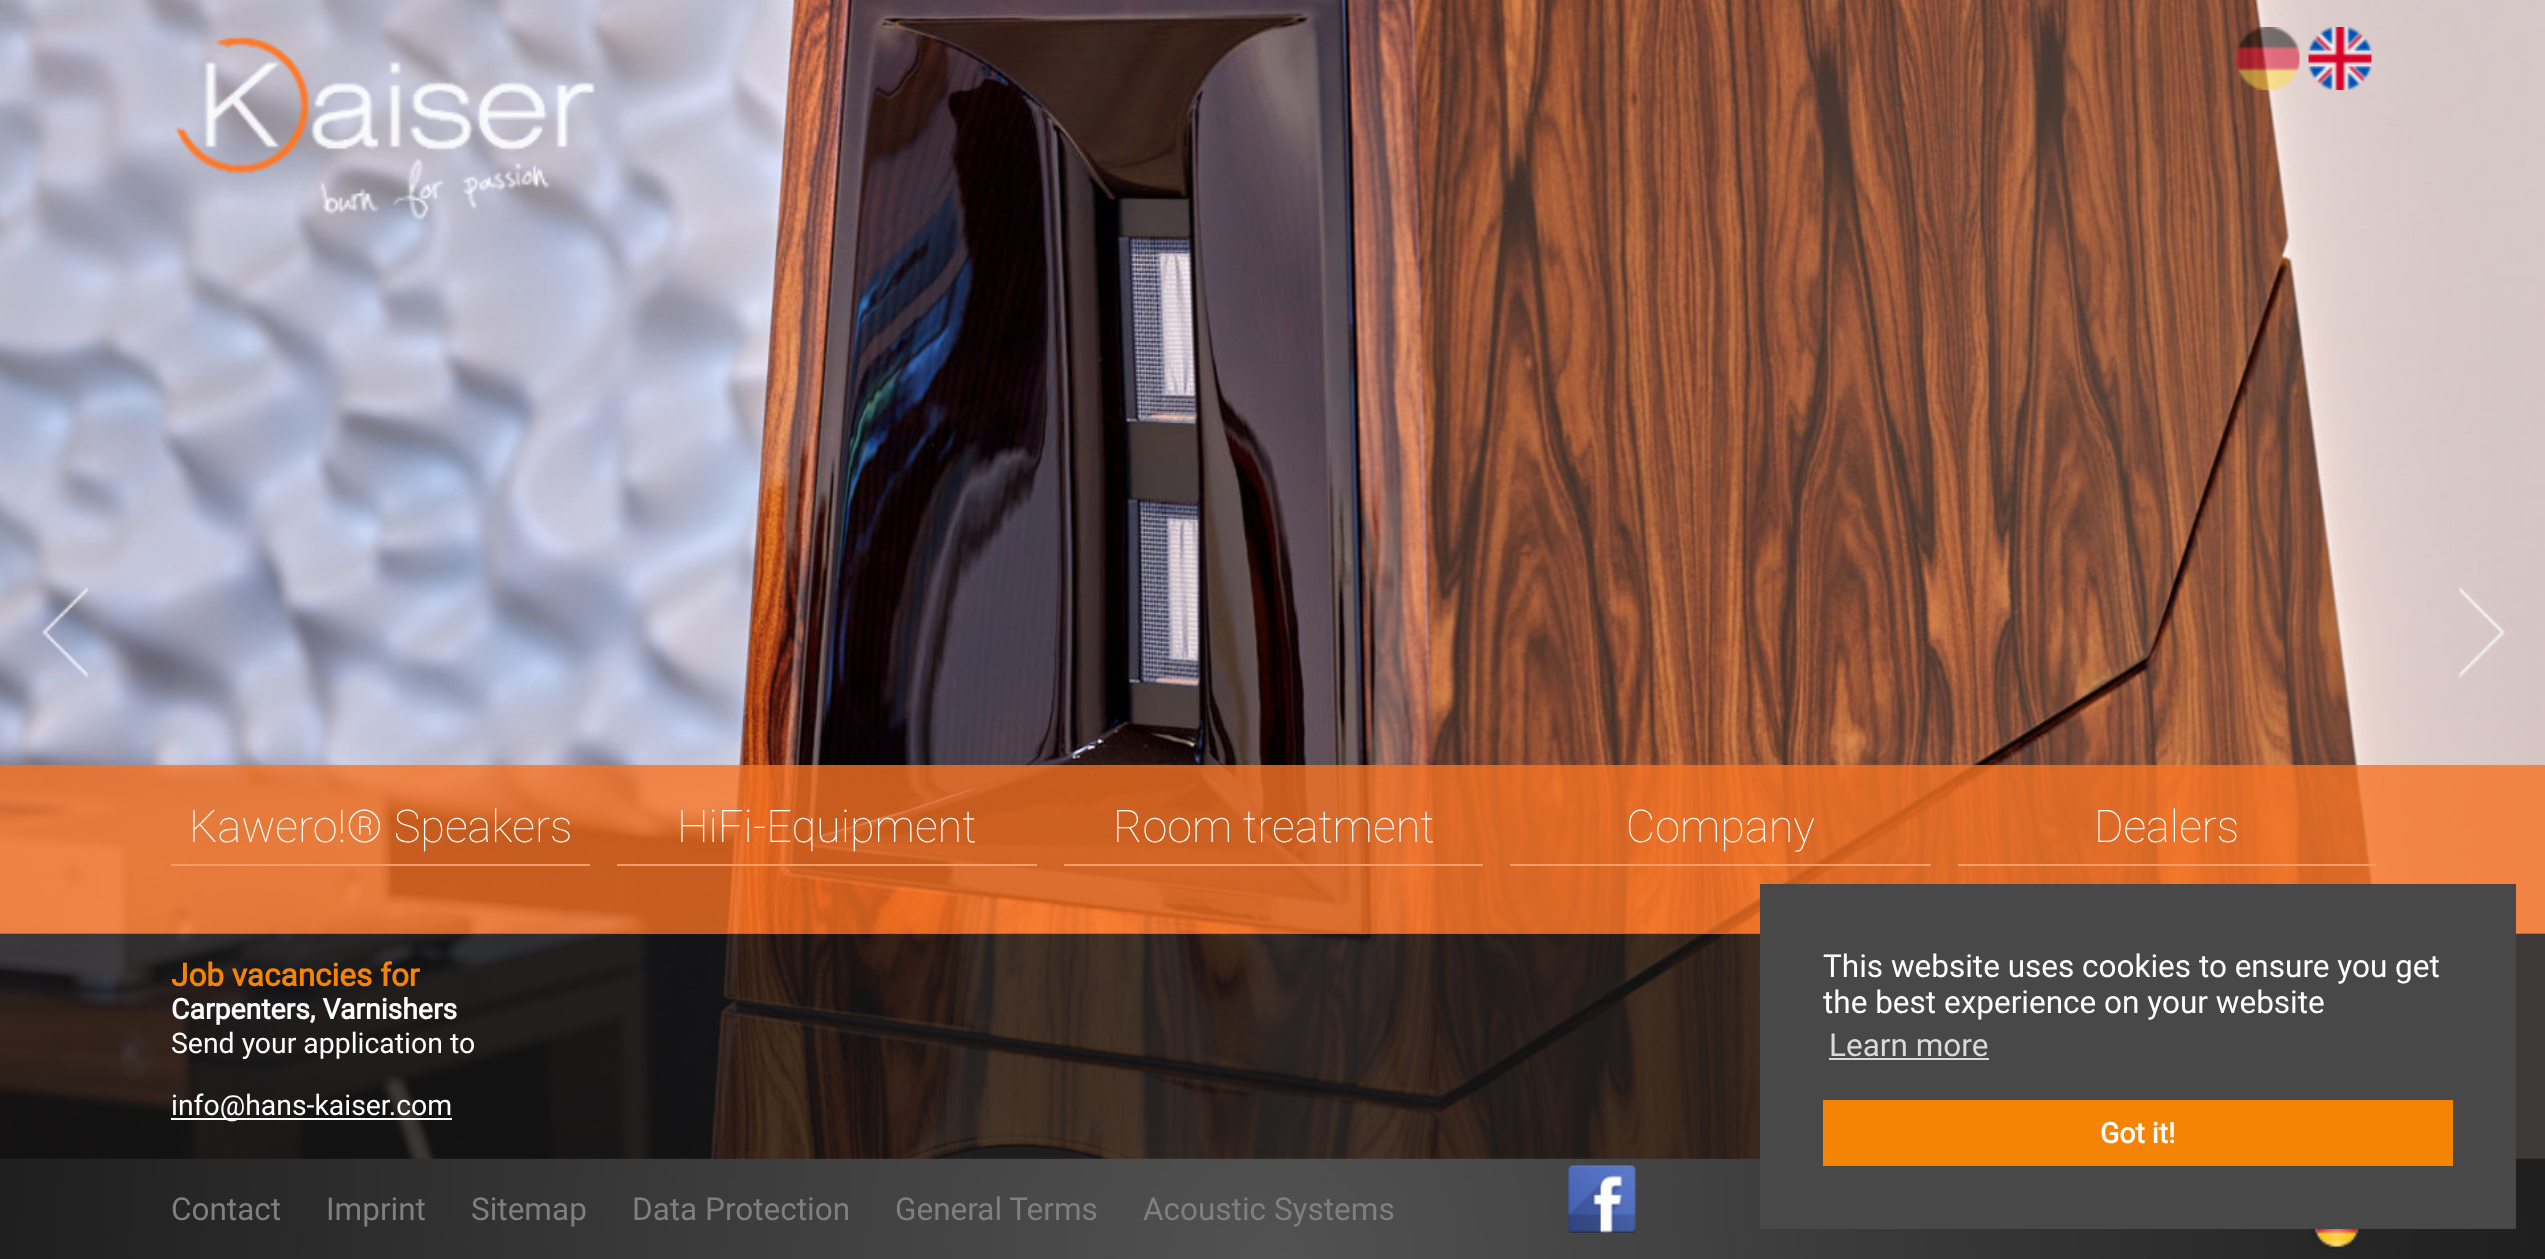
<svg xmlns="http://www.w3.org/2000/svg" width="2545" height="1259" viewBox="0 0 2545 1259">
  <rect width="100%" height="100%" fill="rgb(255,255,255)"/>
  <image x="0" y="0" width="2545" height="1159" href="pic1.png"/>
  <image x="42" y="587" width="47" height="91" href="pic2.png"/>
  <image x="2458" y="587" width="47" height="91" href="pic3.png"/>
  <image x="175" y="35" width="420" height="186" href="pic4.png"/>
  <image x="2236" y="27" width="64" height="63" href="pic5.png"/>
  <image x="2308" y="27" width="64" height="63" href="pic6.png"/>
  <rect x="0" y="933" width="2545" height="226" fill="rgba(22,22,22,0.8)"/>
  <rect x="0" y="765" width="2545" height="169" fill="rgba(246,115,36,0.8)"/>
  <rect x="171" y="864" width="419" height="2" fill="rgb(243,158,104)"/>
  <text x="189" y="842" font-family="Roboto" font-size="45" font-weight="100" fill="rgb(255,255,255)">Kawero!® Speakers</text>
  <rect x="617" y="864" width="420" height="2" fill="rgb(243,158,104)"/>
  <text x="677" y="842" font-family="Roboto" font-size="45" font-weight="100" fill="rgb(255,255,255)">HiFi-Equipment</text>
  <rect x="1064" y="864" width="419" height="2" fill="rgb(243,158,104)"/>
  <text x="1113" y="842" font-family="Roboto" font-size="45" font-weight="100" fill="rgb(255,255,255)">Room treatment</text>
  <rect x="1510" y="864" width="421" height="2" fill="rgb(243,158,104)"/>
  <text x="1626" y="842" font-family="Roboto" font-size="45" font-weight="100" fill="rgb(255,255,255)">Company</text>
  <rect x="1958" y="864" width="418" height="2" fill="rgb(243,158,104)"/>
  <text x="2094" y="842" font-family="Roboto" font-size="45" font-weight="100" fill="rgb(255,255,255)">Dealers</text>
  <text x="171" y="986" font-family="Roboto" font-size="31.5" font-weight="bold" fill="rgb(245,132,5)">Job vacancies for</text>
  <text x="171" y="1019" font-family="Roboto" font-size="28.4" font-weight="bold" fill="rgb(255,255,255)">Carpenters, Varnishers</text>
  <text x="171" y="1053" font-family="Roboto" font-size="28.4" fill="rgb(255,255,255)">Send your application to</text>
  <rect x="171" y="1118" width="281" height="2" fill="rgb(255,255,255)"/>
  <text x="171" y="1115" font-family="Roboto" font-size="28.4" fill="rgb(255,255,255)">info@hans-kaiser.com</text>
  <image x="0" y="1158" width="2545" height="101" href="pic7.png"/>
  <g font-family="Roboto" font-size="31.5" fill="rgb(127,127,127)">
    <text x="171" y="1220">Contact</text>
    <text x="326" y="1220">Imprint</text>
    <text x="471" y="1220">Sitemap</text>
    <text x="632" y="1220">Data Protection</text>
    <text x="895" y="1220">General Terms</text>
    <text x="1143" y="1220">Acoustic Systems</text>
  </g>
  <image x="1568" y="1165" width="68" height="68" href="pic8.png"/>
  <image x="2311" y="1229" width="49" height="20" href="pic9.png"/>
  <rect x="1760" y="884" width="756" height="345" fill="rgb(72,72,72)"/>
  <g font-family="Roboto" font-size="31.5" fill="rgb(255,255,255)">
    <text>
      <tspan x="1823" y="977">This website uses cookies to ensure you get</tspan>
      <tspan x="1823" y="1013">the best experience on your website</tspan>
    </text>
  </g>
  <text x="1829" y="1056" font-family="Roboto" font-size="31.5" fill="rgb(218,218,218)">Learn more</text>
  <rect x="1829" y="1058" width="160" height="2" fill="rgb(218,218,218)"/>
  <rect x="1823" y="1100" width="630" height="66" fill="rgb(245,132,5)"/>
  <text x="2100" y="1143" font-family="Roboto" font-size="28.4" font-weight="bold" fill="rgb(255,255,255)">Got it!</text>
</svg>
